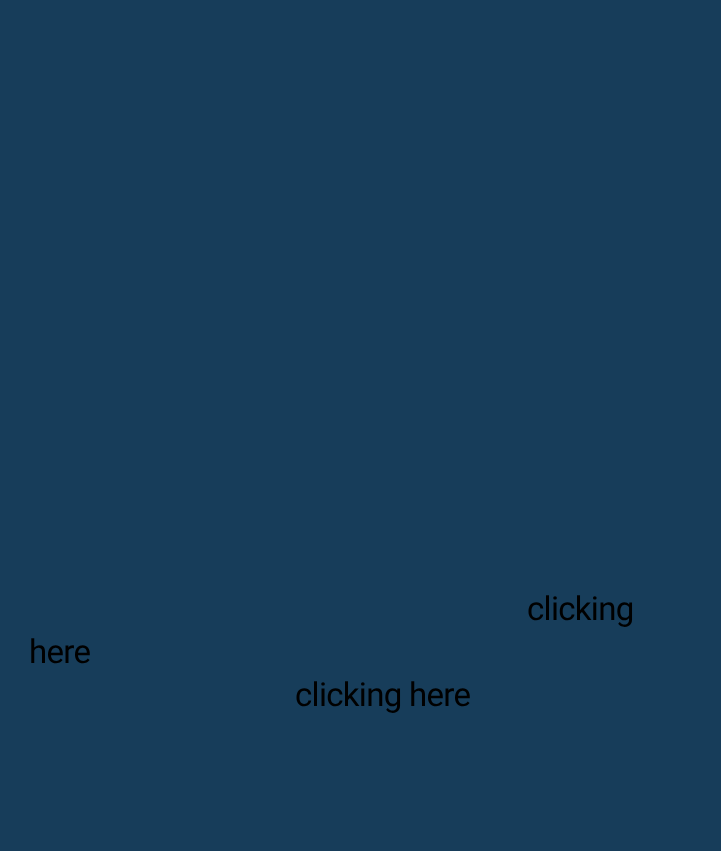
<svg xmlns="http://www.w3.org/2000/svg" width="721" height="851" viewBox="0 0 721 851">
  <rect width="100%" height="100%" fill="rgb(23,61,90)"/>
  <g font-family="Roboto" font-size="33" letter-spacing="-0.7" fill="rgb(0,0,0)">
    <text x="527" y="620">clicking</text>
    <text x="29" y="663">here</text>
    <text x="295" y="706">clicking here</text>
  </g>
</svg>
